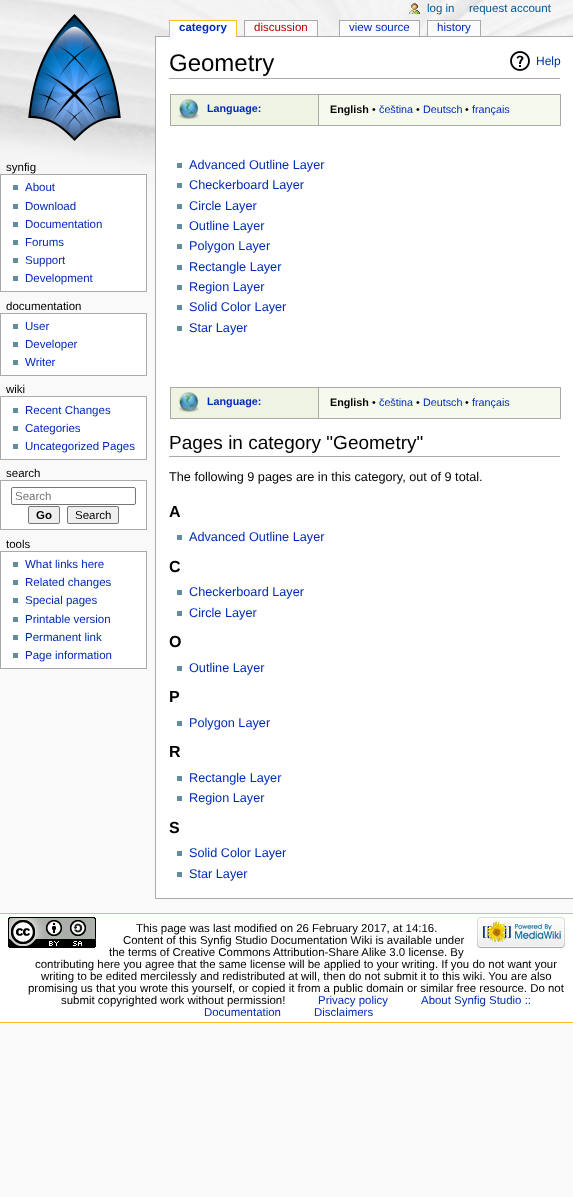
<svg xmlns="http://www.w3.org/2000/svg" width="573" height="1197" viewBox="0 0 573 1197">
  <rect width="100%" height="100%" fill="rgb(249,249,249)"/>
  <image x="0" y="0" width="573" height="194" href="pic1.png"/>
  <image x="409" y="3" width="11" height="11" href="pic2.png"/>
  <g font-family="Liberation Sans" font-size="11.5" fill="rgb(0,88,150)">
    <text x="427" y="12">log in</text>
    <text x="469" y="12">request account</text>
  </g>
  <image x="28" y="14" width="93" height="127" href="pic3.png"/>
  <rect x="155" y="36" width="418" height="1" fill="rgb(170,170,170)"/>
  <rect x="170" y="21" width="66" height="16" fill="rgb(255,255,255)"/>
  <text x="179" y="31" font-family="Liberation Sans" font-size="11.5" font-weight="bold" fill="rgb(0,43,184)">category</text>
  <rect x="169" y="20" width="68" height="1" fill="rgb(250,189,35)"/>
  <rect x="236" y="20" width="1" height="16" fill="rgb(250,189,35)"/>
  <rect x="169" y="20" width="1" height="16" fill="rgb(250,189,35)"/>
  <rect x="245" y="21" width="72" height="15" fill="rgb(251,251,251)"/>
  <text x="254" y="31" font-family="Liberation Sans" font-size="11.5" fill="rgb(186,0,0)">discussion</text>
  <rect x="244" y="20" width="74" height="1" fill="rgb(170,170,170)"/>
  <rect x="317" y="20" width="1" height="16" fill="rgb(170,170,170)"/>
  <rect x="244" y="20" width="1" height="16" fill="rgb(170,170,170)"/>
  <rect x="340" y="21" width="79" height="15" fill="rgb(251,251,251)"/>
  <text x="349" y="31" font-family="Liberation Sans" font-size="11.5" fill="rgb(0,43,184)">view source</text>
  <rect x="339" y="20" width="81" height="1" fill="rgb(170,170,170)"/>
  <rect x="419" y="20" width="1" height="16" fill="rgb(170,170,170)"/>
  <rect x="339" y="20" width="1" height="16" fill="rgb(170,170,170)"/>
  <rect x="428" y="21" width="52" height="15" fill="rgb(251,251,251)"/>
  <text x="437" y="31" font-family="Liberation Sans" font-size="11.5" fill="rgb(0,43,184)">history</text>
  <rect x="427" y="20" width="54" height="1" fill="rgb(170,170,170)"/>
  <rect x="480" y="20" width="1" height="16" fill="rgb(170,170,170)"/>
  <rect x="427" y="20" width="1" height="16" fill="rgb(170,170,170)"/>
  <text x="6" y="171" font-family="Liberation Sans" font-size="11.5" fill="rgb(0,0,0)">synfig</text>
  <rect x="0.5" y="174.5" width="146" height="117" fill="rgb(255,255,255)" stroke="rgb(170,170,170)"/>
  <rect x="13" y="185" width="5" height="5" fill="rgb(99,140,156)"/>
  <text x="25" y="191" font-family="Liberation Sans" font-size="11.5" fill="rgb(0,43,184)">About</text>
  <rect x="13" y="204" width="5" height="5" fill="rgb(99,140,156)"/>
  <text x="25" y="210" font-family="Liberation Sans" font-size="11.5" fill="rgb(0,43,184)">Download</text>
  <rect x="13" y="222" width="5" height="5" fill="rgb(99,140,156)"/>
  <text x="25" y="228" font-family="Liberation Sans" font-size="11.5" fill="rgb(0,43,184)">Documentation</text>
  <rect x="13" y="240" width="5" height="5" fill="rgb(99,140,156)"/>
  <text x="25" y="246" font-family="Liberation Sans" font-size="11.5" fill="rgb(0,43,184)">Forums</text>
  <rect x="13" y="258" width="5" height="5" fill="rgb(99,140,156)"/>
  <text x="25" y="264" font-family="Liberation Sans" font-size="11.5" fill="rgb(0,43,184)">Support</text>
  <rect x="13" y="276" width="5" height="5" fill="rgb(99,140,156)"/>
  <text x="25" y="282" font-family="Liberation Sans" font-size="11.5" fill="rgb(0,43,184)">Development</text>
  <text x="6" y="310" font-family="Liberation Sans" font-size="11.5" fill="rgb(0,0,0)">documentation</text>
  <rect x="0.5" y="313.5" width="146" height="62" fill="rgb(255,255,255)" stroke="rgb(170,170,170)"/>
  <rect x="13" y="324" width="5" height="5" fill="rgb(99,140,156)"/>
  <text x="25" y="330" font-family="Liberation Sans" font-size="11.5" fill="rgb(0,43,184)">User</text>
  <rect x="13" y="342" width="5" height="5" fill="rgb(99,140,156)"/>
  <text x="25" y="348" font-family="Liberation Sans" font-size="11.5" fill="rgb(0,43,184)">Developer</text>
  <rect x="13" y="360" width="5" height="5" fill="rgb(99,140,156)"/>
  <text x="25" y="366" font-family="Liberation Sans" font-size="11.5" fill="rgb(0,43,184)">Writer</text>
  <text x="6" y="393" font-family="Liberation Sans" font-size="11.5" fill="rgb(0,0,0)">wiki</text>
  <rect x="0.5" y="396.5" width="146" height="63" fill="rgb(255,255,255)" stroke="rgb(170,170,170)"/>
  <rect x="13" y="408" width="5" height="5" fill="rgb(99,140,156)"/>
  <text x="25" y="414" font-family="Liberation Sans" font-size="11.5" fill="rgb(0,43,184)">Recent Changes</text>
  <rect x="13" y="426" width="5" height="5" fill="rgb(99,140,156)"/>
  <text x="25" y="432" font-family="Liberation Sans" font-size="11.5" fill="rgb(0,43,184)">Categories</text>
  <rect x="13" y="444" width="5" height="5" fill="rgb(99,140,156)"/>
  <text x="25" y="450" font-family="Liberation Sans" font-size="11.5" fill="rgb(0,43,184)">Uncategorized Pages</text>
  <text x="6" y="477" font-family="Liberation Sans" font-size="11.5" fill="rgb(0,0,0)">search</text>
  <rect x="0.5" y="480.5" width="146" height="49" fill="rgb(255,255,255)" stroke="rgb(170,170,170)"/>
  <rect x="11.5" y="487.5" width="124" height="17" rx="1.5" fill="none" stroke="rgb(118,118,118)"/>
  <text x="15" y="500" font-family="Liberation Sans" font-size="11.5" fill="rgb(117,117,117)">Search</text>
  <rect x="28.5" y="506.5" width="31" height="17" rx="1.5" fill="rgb(239,239,239)" stroke="rgb(118,118,118)"/>
  <text x="36" y="519" font-family="Liberation Sans" font-size="11.5" font-weight="bold" fill="rgb(0,0,0)">Go</text>
  <rect x="67.5" y="506.5" width="51" height="17" rx="1.5" fill="rgb(239,239,239)" stroke="rgb(118,118,118)"/>
  <g font-family="Liberation Sans" font-size="11.5" fill="rgb(0,0,0)">
    <text x="75" y="519">Search</text>
    <text x="6" y="548">tools</text>
  </g>
  <rect x="0.5" y="551.5" width="146" height="117" fill="rgb(255,255,255)" stroke="rgb(170,170,170)"/>
  <rect x="13" y="562" width="5" height="5" fill="rgb(99,140,156)"/>
  <text x="25" y="568" font-family="Liberation Sans" font-size="11.5" fill="rgb(0,43,184)">What links here</text>
  <rect x="13" y="580" width="5" height="5" fill="rgb(99,140,156)"/>
  <text x="25" y="586" font-family="Liberation Sans" font-size="11.5" fill="rgb(0,43,184)">Related changes</text>
  <rect x="13" y="598" width="5" height="5" fill="rgb(99,140,156)"/>
  <text x="25" y="604" font-family="Liberation Sans" font-size="11.5" fill="rgb(0,43,184)">Special pages</text>
  <rect x="13" y="617" width="5" height="5" fill="rgb(99,140,156)"/>
  <text x="25" y="623" font-family="Liberation Sans" font-size="11.5" fill="rgb(0,43,184)">Printable version</text>
  <rect x="13" y="635" width="5" height="5" fill="rgb(99,140,156)"/>
  <text x="25" y="641" font-family="Liberation Sans" font-size="11.5" fill="rgb(0,43,184)">Permanent link</text>
  <rect x="13" y="653" width="5" height="5" fill="rgb(99,140,156)"/>
  <text x="25" y="659" font-family="Liberation Sans" font-size="11.5" fill="rgb(0,43,184)">Page information</text>
  <rect x="156" y="37" width="417" height="861" fill="rgb(255,255,255)"/>
  <rect x="155" y="898" width="418" height="1" fill="rgb(170,170,170)"/>
  <rect x="155" y="36" width="1" height="863" fill="rgb(170,170,170)"/>
  <rect x="169" y="78" width="391" height="1" fill="rgb(170,170,170)"/>
  <text x="169" y="71" font-family="Liberation Sans" font-size="24" fill="rgb(0,0,0)">Geometry</text>
  <image x="510" y="51" width="20" height="20" href="pic4.png"/>
  <text x="536" y="65" font-family="Liberation Sans" font-size="12" fill="rgb(0,43,184)">Help</text>
  <rect x="170" y="94" width="391" height="1" fill="rgb(170,170,170)"/>
  <rect x="560" y="94" width="1" height="32" fill="rgb(170,170,170)"/>
  <rect x="170" y="125" width="391" height="1" fill="rgb(170,170,170)"/>
  <rect x="170" y="94" width="1" height="32" fill="rgb(170,170,170)"/>
  <rect x="171" y="95" width="147" height="30" fill="rgb(238,243,226)"/>
  <image x="178" y="99" width="21" height="21" href="pic5.png"/>
  <rect x="318" y="94" width="1" height="32" fill="rgb(170,170,170)"/>
  <text x="207" y="112" font-family="Liberation Sans" font-size="10.75" font-weight="bold" fill="rgb(0,43,184)">Language:</text>
  <rect x="319" y="95" width="241" height="30" fill="rgb(246,249,237)"/>
  <text x="330" y="113" font-family="Liberation Sans" font-size="10.75" font-weight="bold" fill="rgb(0,0,0)">English</text>
  <text x="372" y="113" font-family="Liberation Sans" font-size="10.75" fill="rgb(0,0,0)">•</text>
  <text x="379" y="113" font-family="Liberation Sans" font-size="10.75" fill="rgb(0,43,184)">čeština</text>
  <text x="416" y="113" font-family="Liberation Sans" font-size="10.75" fill="rgb(0,0,0)">•</text>
  <text x="423" y="113" font-family="Liberation Sans" font-size="10.75" fill="rgb(0,43,184)">Deutsch</text>
  <text x="465" y="113" font-family="Liberation Sans" font-size="10.75" fill="rgb(0,0,0)">•</text>
  <text x="472" y="113" font-family="Liberation Sans" font-size="10.75" fill="rgb(0,43,184)">français</text>
  <rect x="177" y="163" width="5" height="5" fill="rgb(99,140,156)"/>
  <text x="189" y="169" font-family="Liberation Sans" font-size="12.7" fill="rgb(0,43,184)">Advanced Outline Layer</text>
  <rect x="177" y="183" width="5" height="5" fill="rgb(99,140,156)"/>
  <text x="189" y="189" font-family="Liberation Sans" font-size="12.7" fill="rgb(0,43,184)">Checkerboard Layer</text>
  <rect x="177" y="204" width="5" height="5" fill="rgb(99,140,156)"/>
  <text x="189" y="210" font-family="Liberation Sans" font-size="12.7" fill="rgb(0,43,184)">Circle Layer</text>
  <rect x="177" y="224" width="5" height="5" fill="rgb(99,140,156)"/>
  <text x="189" y="230" font-family="Liberation Sans" font-size="12.7" fill="rgb(0,43,184)">Outline Layer</text>
  <rect x="177" y="244" width="5" height="5" fill="rgb(99,140,156)"/>
  <text x="189" y="250" font-family="Liberation Sans" font-size="12.7" fill="rgb(0,43,184)">Polygon Layer</text>
  <rect x="177" y="265" width="5" height="5" fill="rgb(99,140,156)"/>
  <text x="189" y="271" font-family="Liberation Sans" font-size="12.7" fill="rgb(0,43,184)">Rectangle Layer</text>
  <rect x="177" y="285" width="5" height="5" fill="rgb(99,140,156)"/>
  <text x="189" y="291" font-family="Liberation Sans" font-size="12.7" fill="rgb(0,43,184)">Region Layer</text>
  <rect x="177" y="305" width="5" height="5" fill="rgb(99,140,156)"/>
  <text x="189" y="311" font-family="Liberation Sans" font-size="12.7" fill="rgb(0,43,184)">Solid Color Layer</text>
  <rect x="177" y="326" width="5" height="5" fill="rgb(99,140,156)"/>
  <text x="189" y="332" font-family="Liberation Sans" font-size="12.7" fill="rgb(0,43,184)">Star Layer</text>
  <rect x="170" y="387" width="391" height="1" fill="rgb(170,170,170)"/>
  <rect x="560" y="387" width="1" height="32" fill="rgb(170,170,170)"/>
  <rect x="170" y="418" width="391" height="1" fill="rgb(170,170,170)"/>
  <rect x="170" y="387" width="1" height="32" fill="rgb(170,170,170)"/>
  <rect x="171" y="388" width="147" height="30" fill="rgb(238,243,226)"/>
  <image x="178" y="392" width="21" height="21" href="pic5.png"/>
  <rect x="318" y="387" width="1" height="32" fill="rgb(170,170,170)"/>
  <text x="207" y="405" font-family="Liberation Sans" font-size="10.75" font-weight="bold" fill="rgb(0,43,184)">Language:</text>
  <rect x="319" y="388" width="241" height="30" fill="rgb(246,249,237)"/>
  <text x="330" y="406" font-family="Liberation Sans" font-size="10.75" font-weight="bold" fill="rgb(0,0,0)">English</text>
  <text x="372" y="406" font-family="Liberation Sans" font-size="10.75" fill="rgb(0,0,0)">•</text>
  <text x="379" y="406" font-family="Liberation Sans" font-size="10.75" fill="rgb(0,43,184)">čeština</text>
  <text x="416" y="406" font-family="Liberation Sans" font-size="10.75" fill="rgb(0,0,0)">•</text>
  <text x="423" y="406" font-family="Liberation Sans" font-size="10.75" fill="rgb(0,43,184)">Deutsch</text>
  <text x="465" y="406" font-family="Liberation Sans" font-size="10.75" fill="rgb(0,0,0)">•</text>
  <text x="472" y="406" font-family="Liberation Sans" font-size="10.75" fill="rgb(0,43,184)">français</text>
  <rect x="169" y="456" width="391" height="1" fill="rgb(170,170,170)"/>
  <text x="169" y="449" font-family="Liberation Sans" font-size="19" fill="rgb(0,0,0)">Pages in category "Geometry"</text>
  <text x="169" y="481" font-family="Liberation Sans" font-size="12.7" fill="rgb(0,0,0)">The following 9 pages are in this category, out of 9 total.</text>
  <text x="169" y="517" font-family="Liberation Sans" font-size="16" font-weight="bold" fill="rgb(0,0,0)">A</text>
  <rect x="177" y="535" width="5" height="5" fill="rgb(99,140,156)"/>
  <text x="189" y="541" font-family="Liberation Sans" font-size="12.7" fill="rgb(0,43,184)">Advanced Outline Layer</text>
  <text x="169" y="572" font-family="Liberation Sans" font-size="16" font-weight="bold" fill="rgb(0,0,0)">C</text>
  <rect x="177" y="590" width="5" height="5" fill="rgb(99,140,156)"/>
  <text x="189" y="596" font-family="Liberation Sans" font-size="12.7" fill="rgb(0,43,184)">Checkerboard Layer</text>
  <rect x="177" y="611" width="5" height="5" fill="rgb(99,140,156)"/>
  <text x="189" y="617" font-family="Liberation Sans" font-size="12.7" fill="rgb(0,43,184)">Circle Layer</text>
  <text x="169" y="647" font-family="Liberation Sans" font-size="16" font-weight="bold" fill="rgb(0,0,0)">O</text>
  <rect x="177" y="666" width="5" height="5" fill="rgb(99,140,156)"/>
  <text x="189" y="672" font-family="Liberation Sans" font-size="12.7" fill="rgb(0,43,184)">Outline Layer</text>
  <text x="169" y="702" font-family="Liberation Sans" font-size="16" font-weight="bold" fill="rgb(0,0,0)">P</text>
  <rect x="177" y="721" width="5" height="5" fill="rgb(99,140,156)"/>
  <text x="189" y="727" font-family="Liberation Sans" font-size="12.7" fill="rgb(0,43,184)">Polygon Layer</text>
  <text x="169" y="757" font-family="Liberation Sans" font-size="16" font-weight="bold" fill="rgb(0,0,0)">R</text>
  <rect x="177" y="776" width="5" height="5" fill="rgb(99,140,156)"/>
  <text x="189" y="782" font-family="Liberation Sans" font-size="12.7" fill="rgb(0,43,184)">Rectangle Layer</text>
  <rect x="177" y="796" width="5" height="5" fill="rgb(99,140,156)"/>
  <text x="189" y="802" font-family="Liberation Sans" font-size="12.7" fill="rgb(0,43,184)">Region Layer</text>
  <text x="169" y="833" font-family="Liberation Sans" font-size="16" font-weight="bold" fill="rgb(0,0,0)">S</text>
  <rect x="177" y="851" width="5" height="5" fill="rgb(99,140,156)"/>
  <text x="189" y="857" font-family="Liberation Sans" font-size="12.7" fill="rgb(0,43,184)">Solid Color Layer</text>
  <rect x="177" y="872" width="5" height="5" fill="rgb(99,140,156)"/>
  <text x="189" y="878" font-family="Liberation Sans" font-size="12.7" fill="rgb(0,43,184)">Star Layer</text>
  <rect x="0" y="914" width="573" height="108" fill="rgb(255,255,255)"/>
  <rect x="0" y="913" width="573" height="1" fill="rgb(250,189,35)"/>
  <rect x="0" y="1022" width="573" height="1" fill="rgb(250,189,35)"/>
  <image x="8" y="917" width="88" height="31" href="pic6.png"/>
  <image x="477" y="917" width="88" height="31" href="pic7.png"/>
  <g font-family="Liberation Sans" font-size="11.45" fill="rgb(0,0,0)">
    <text x="136" y="932">This page was last modified on 26 February 2017, at 14:16.</text>
    <text x="123" y="944">Content of this Synfig Studio Documentation Wiki is available under</text>
    <text x="109" y="956">the terms of Creative Commons Attribution-Share Alike 3.0 license. By</text>
    <text x="35" y="968">contributing here you agree that the same license will be applied to your writing. If you do not want your</text>
    <text x="41" y="980">writing to be edited mercilessly and redistributed at will, then do not submit it to this wiki. You are also</text>
    <text x="28" y="992">promising us that you wrote this yourself, or copied it from a public domain or similar free resource. Do not</text>
    <text x="61" y="1004">submit copyrighted work without permission!</text>
  </g>
  <g font-family="Liberation Sans" font-size="11.45" fill="rgb(0,43,184)">
    <text x="318" y="1004">Privacy policy</text>
    <text x="421" y="1004">About Synfig Studio ::</text>
    <text x="204" y="1016">Documentation</text>
    <text x="314" y="1016">Disclaimers</text>
  </g>
</svg>
